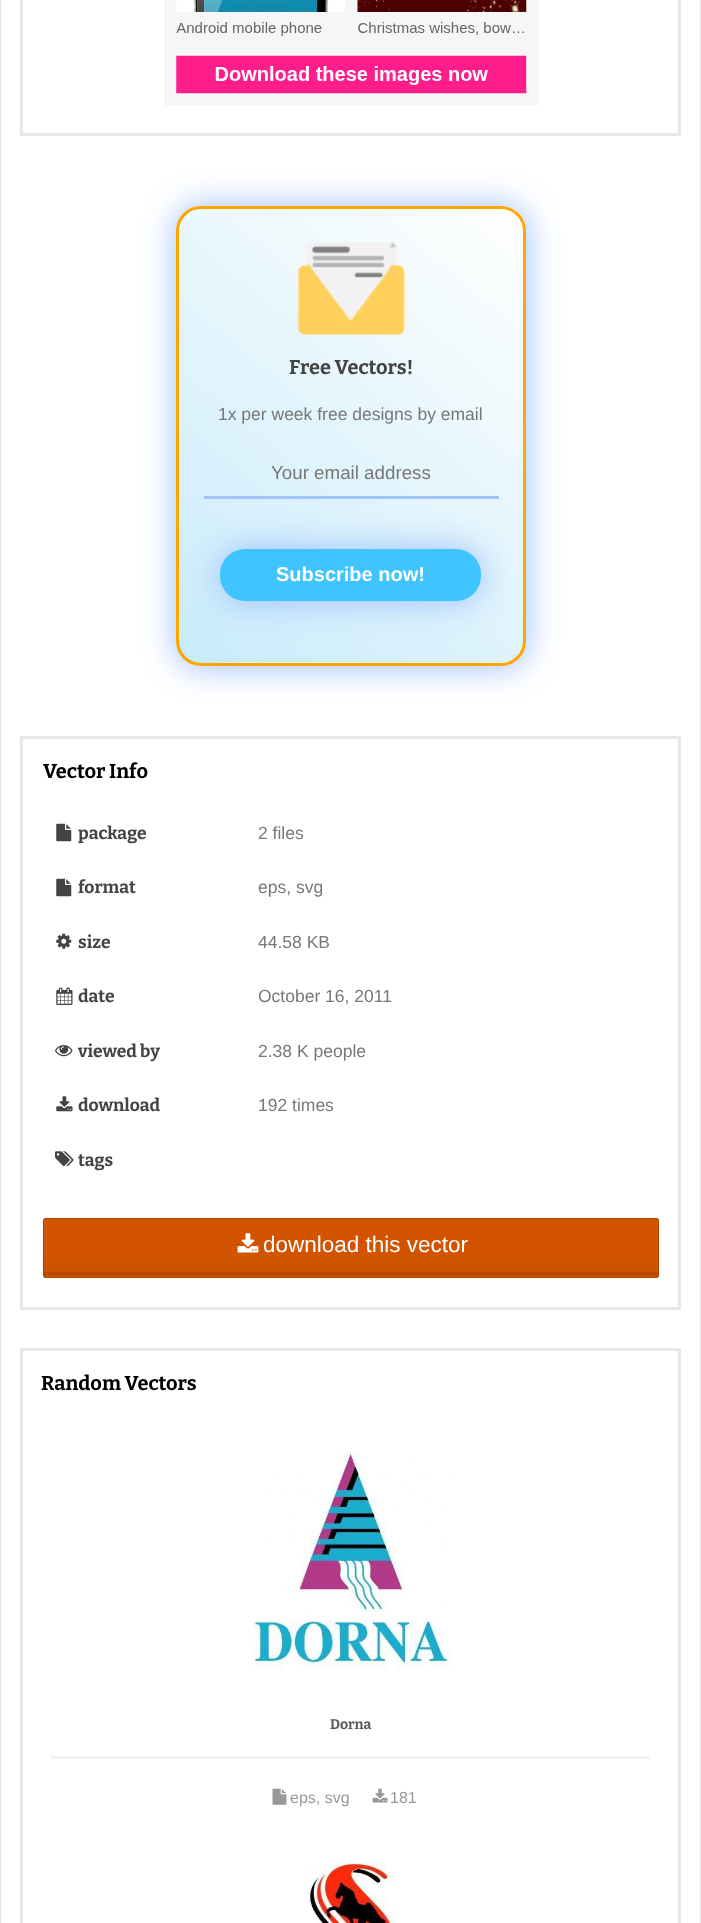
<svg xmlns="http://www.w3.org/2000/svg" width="701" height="1923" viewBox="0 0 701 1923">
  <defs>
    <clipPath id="clip1"><rect x="176" y="206" width="350" height="460" rx="25"/></clipPath>
    <linearGradient id="g1" gradientUnits="userSpaceOnUse" x1="535" y1="218" x2="131" y2="698"><stop offset="0" stop-color="rgb(255,255,255)" stop-opacity="0.95"/><stop offset="1" stop-color="rgb(194,233,251)"/></linearGradient>
    <linearGradient id="g2" gradientUnits="userSpaceOnUse" x1="351" y1="1161" x2="351" y2="1219"><stop offset="0" stop-color="rgb(0,0,0)" stop-opacity="0"/><stop offset="1" stop-color="rgb(0,0,0)" stop-opacity="0.03"/></linearGradient>
    <linearGradient id="g3" gradientUnits="userSpaceOnUse" x1="351" y1="1219" x2="351" y2="1276"><stop offset="0" stop-color="rgb(0,0,0)" stop-opacity="0"/><stop offset="1" stop-color="rgb(0,0,0)" stop-opacity="0.03"/></linearGradient>
  </defs>
  <rect width="100%" height="100%" fill="rgb(255,255,255)"/>
  <rect x="700" y="0" width="1" height="1923" fill="rgb(230,230,230)"/>
  <rect x="0" y="0" width="1" height="1923" fill="rgb(230,230,230)"/>
  <rect x="21.5" y="-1.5" width="658" height="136" fill="none" stroke="rgb(232,232,232)" stroke-width="3"/>
  <image x="164" y="0" width="375" height="106" href="pic1.png"/>
  <rect x="175" y="205" width="353" height="463" rx="26" fill="rgb(161,195,254)" filter="blur(16px)"/>
  <rect x="176" y="206" width="350" height="460" rx="25" fill="rgb(255,255,224)"/>
  <g clip-path="url(#clip1)">
    <rect x="179" y="209" width="345" height="455" fill="url(#g1)"/>
  </g>
  <rect x="177.5" y="207.5" width="347" height="457" rx="23.5" fill="none" stroke="rgb(255,165,0)" stroke-width="3"/>
  <image x="297" y="242" width="109" height="93" href="pic2.png"/>
  <text x="289" y="374" font-family="Bitter" font-size="20" font-weight="bold" fill="rgb(68,68,68)">Free Vectors!</text>
  <text x="218" y="420" font-family="Liberation Sans" font-size="17.5" fill="rgb(119,119,119)">1x per week free designs by email</text>
  <rect x="204" y="496" width="295" height="3" fill="rgb(161,195,254)"/>
  <text x="271" y="479" font-family="Liberation Sans" font-size="18.75" fill="rgb(119,119,119)">Your email address</text>
  <rect x="219" y="548" width="264" height="55" rx="26" fill="rgb(161,195,254)" filter="blur(16px)"/>
  <rect x="220" y="549" width="261" height="52" rx="25" fill="rgb(64,196,255)"/>
  <text x="276" y="581" font-family="Liberation Sans" font-size="20" font-weight="bold" fill="rgb(255,255,255)">Subscribe now!</text>
  <rect x="21.5" y="737.5" width="658" height="571" fill="none" stroke="rgb(232,232,232)" stroke-width="3"/>
  <text x="43" y="778" font-family="Bitter" font-size="20" font-weight="bold" fill="rgb(0,0,0)">Vector Info</text>
  <image x="56" y="823" width="16" height="19" href="pic3.png"/>
  <text x="78" y="839" font-family="Bitter" font-size="17.5" font-weight="bold" fill="rgb(68,68,68)">package</text>
  <text x="258" y="839" font-family="Liberation Sans" font-size="17.5" fill="rgb(119,119,119)">2 files</text>
  <image x="56" y="878" width="16" height="19" href="pic3.png"/>
  <text x="78" y="893" font-family="Bitter" font-size="17.5" font-weight="bold" fill="rgb(68,68,68)">format</text>
  <text x="258" y="893" font-family="Liberation Sans" font-size="17.5" fill="rgb(119,119,119)">eps, svg</text>
  <image x="56" y="933" width="16" height="16" href="pic4.png"/>
  <text x="78" y="948" font-family="Bitter" font-size="17.5" font-weight="bold" fill="rgb(68,68,68)">size</text>
  <text x="258" y="948" font-family="Liberation Sans" font-size="17.5" fill="rgb(119,119,119)">44.58 KB</text>
  <image x="56" y="987" width="17" height="18" href="pic5.png"/>
  <text x="78" y="1002" font-family="Bitter" font-size="17.5" font-weight="bold" fill="rgb(68,68,68)">date</text>
  <text x="258" y="1002" font-family="Liberation Sans" font-size="17.5" fill="rgb(119,119,119)">October 16, 2011</text>
  <image x="55" y="1045" width="18" height="12" href="pic6.png"/>
  <text x="78" y="1057" font-family="Bitter" font-size="17.5" font-weight="bold" fill="rgb(68,68,68)">viewed by</text>
  <text x="258" y="1057" font-family="Liberation Sans" font-size="17.5" fill="rgb(119,119,119)">2.38 K people</text>
  <image x="56" y="1096" width="17" height="16" href="pic7.png"/>
  <text x="78" y="1111" font-family="Bitter" font-size="17.5" font-weight="bold" fill="rgb(68,68,68)">download</text>
  <text x="258" y="1111" font-family="Liberation Sans" font-size="17.5" fill="rgb(119,119,119)">192 times</text>
  <image x="55" y="1151" width="19" height="15" href="pic8.png"/>
  <text x="78" y="1166" font-family="Bitter" font-size="17.5" font-weight="bold" fill="rgb(68,68,68)">tags</text>
  <rect x="43" y="1218" width="616" height="60" rx="2.5" fill="rgb(211,84,0)"/>
  <rect x="43" y="1218" width="616" height="1" fill="url(#g2)"/>
  <rect x="43" y="1260" width="616" height="16" fill="url(#g3)"/>
  <path d="M44 1271V1275C44 1276 44 1276 45 1276H657C658 1276 658 1276 658 1275V1271C658 1272 657 1272 656 1272H45C44 1272 44 1272 44 1271Z" fill="rgb(180,72,0)"/>
  <rect x="43.5" y="1218.5" width="615" height="59" rx="2" fill="none" stroke="rgba(0,0,0,0.15)"/>
  <image x="237" y="1233" width="22" height="20" href="pic9.png"/>
  <text x="263" y="1252" font-family="Liberation Sans" font-size="22.5" fill="rgb(255,255,255)">download this vector</text>
  <rect x="21.5" y="1349.5" width="658" height="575" fill="none" stroke="rgb(232,232,232)" stroke-width="3"/>
  <text x="41" y="1390" font-family="Bitter" font-size="20" font-weight="bold" fill="rgb(0,0,0)">Random Vectors</text>
  <image x="254" y="1452" width="198" height="217" href="pic10.png"/>
  <rect x="51" y="1756" width="599" height="3" fill="rgb(242,242,242)"/>
  <text x="330" y="1729" font-family="Bitter" font-size="14" font-weight="bold" fill="rgb(88,88,88)">Dorna</text>
  <image x="272" y="1788" width="15" height="17" href="pic11.png"/>
  <text x="290" y="1803" font-family="Liberation Sans" font-size="16" fill="rgb(153,153,153)">eps, svg</text>
  <image x="372" y="1788" width="16" height="15" href="pic12.png"/>
  <text x="390" y="1803" font-family="Liberation Sans" font-size="16" fill="rgb(153,153,153)">181</text>
  <image x="306" y="1862" width="90" height="61" href="pic13.png"/>
</svg>
